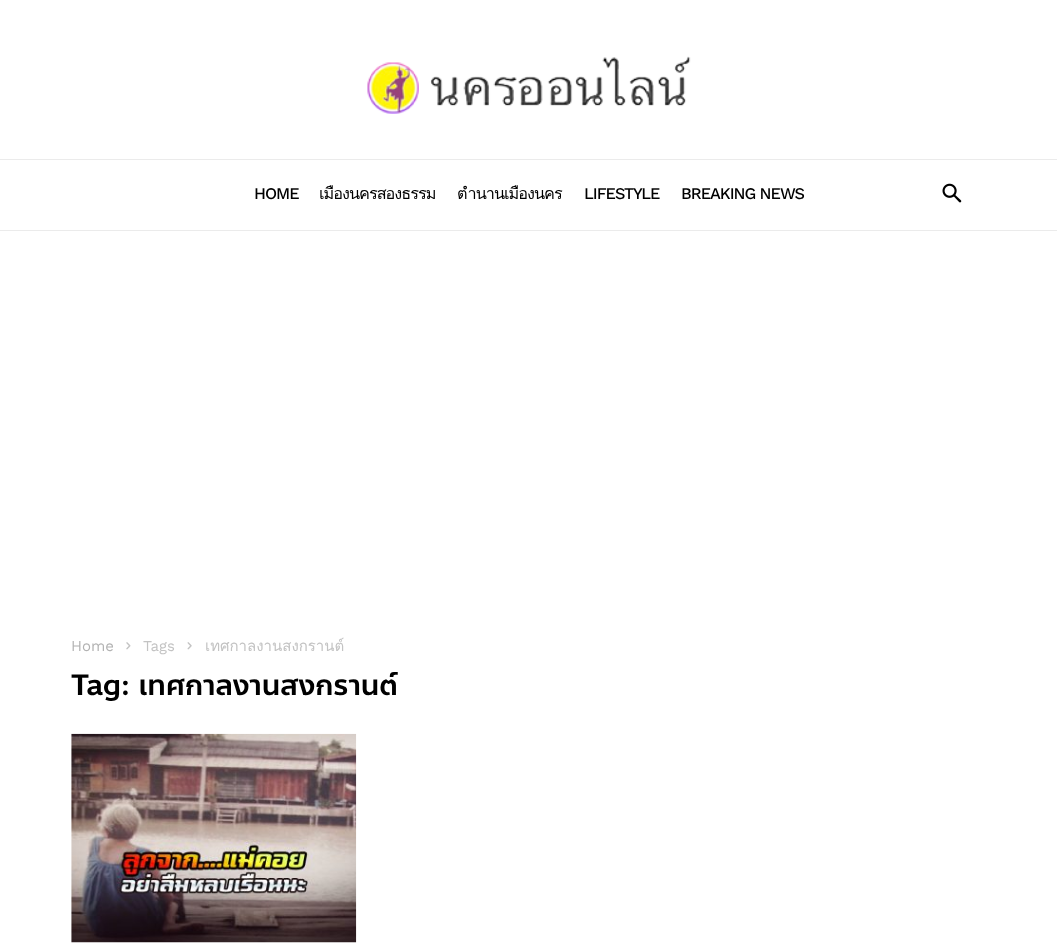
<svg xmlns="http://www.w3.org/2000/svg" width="1057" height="946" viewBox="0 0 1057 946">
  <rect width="100%" height="100%" fill="rgb(255,255,255)"/>
  <image x="367" y="56" width="324" height="58" href="pic1.png"/>
  <rect x="0" y="159" width="1057" height="1" fill="rgb(235,235,235)"/>
  <text x="254" y="199" font-family="Work Sans" font-size="16.25" font-weight="500" letter-spacing="-1" fill="rgb(0,0,0)">HOME</text>
  <g font-family="Loma" font-size="16.25" letter-spacing="-1" fill="rgb(0,0,0)">
    <text x="319" y="199">เมืองนครสองธรรม</text>
    <text x="457" y="199">ตำนานเมืองนคร</text>
  </g>
  <g font-family="Work Sans" font-size="16.25" font-weight="500" letter-spacing="-1" fill="rgb(0,0,0)">
    <text x="584" y="199">LIFESTYLE</text>
    <text x="681" y="199">BREAKING NEWS</text>
  </g>
  <image x="942" y="183" width="20" height="20" href="pic2.png"/>
  <rect x="0" y="230" width="1057" height="1" fill="rgb(235,235,235)"/>
  <text x="71" y="651" font-family="Work Sans" font-size="15" fill="rgb(178,178,178)">Home</text>
  <image x="126" y="642" width="5" height="8" href="pic3.png"/>
  <text x="143" y="651" font-family="Work Sans" font-size="15" fill="rgb(195,195,195)">Tags</text>
  <image x="187" y="642" width="5" height="8" href="pic4.png"/>
  <text x="205" y="651" font-family="Loma" font-size="15" fill="rgb(195,195,195)">เทศกาลงานสงกรานต์</text>
  <text x="71" y="695" font-family="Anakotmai" font-size="28.75" font-weight="500" fill="rgb(0,0,0)">Tag: เทศกาลงานสงกรานต์</text>
  <image x="71" y="733" width="286" height="210" href="pic5.png"/>
</svg>
